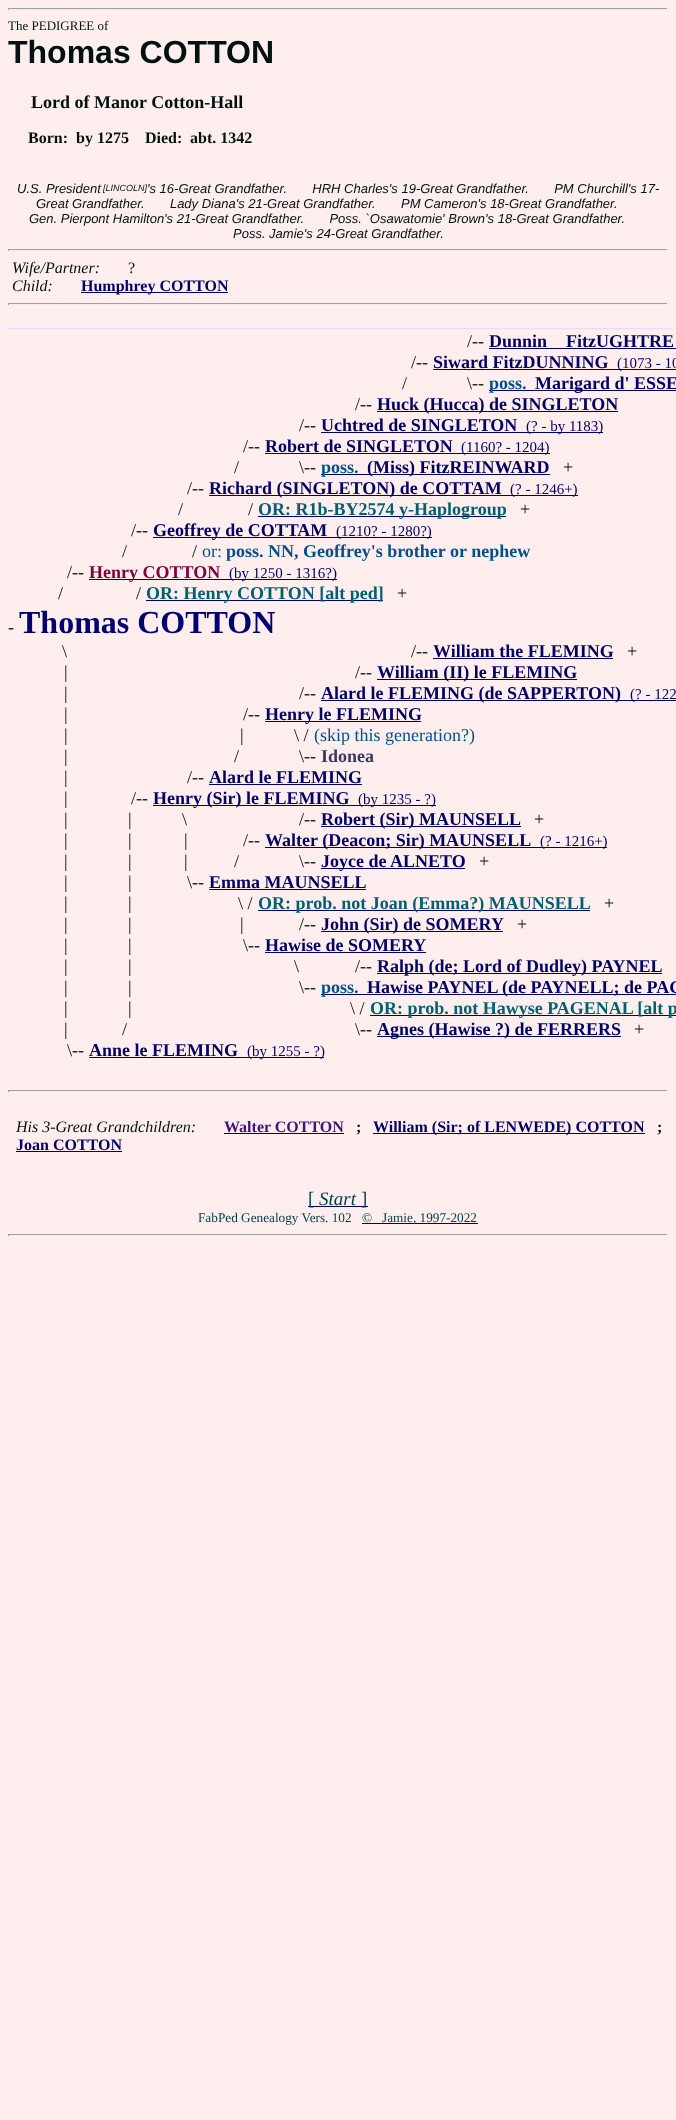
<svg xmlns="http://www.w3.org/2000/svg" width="676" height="2120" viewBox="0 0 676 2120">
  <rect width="100%" height="100%" fill="rgb(255,238,238)"/>
  <rect x="8" y="8" width="660" height="1" fill="rgb(159,159,159)"/>
  <rect x="667" y="8" width="1" height="2" fill="rgb(238,238,238)"/>
  <rect x="8" y="9" width="660" height="1" fill="rgb(238,238,238)"/>
  <rect x="8" y="8" width="1" height="2" fill="rgb(159,159,159)"/>
  <text x="8" y="30" font-family="Liberation Serif" font-size="13" fill="rgb(0,17,17)">The PEDIGREE of</text>
  <text x="8" y="63" font-family="Liberation Sans" font-size="32" font-weight="bold" fill="rgb(0,17,17)">Thomas COTTON</text>
  <text x="31" y="108" font-family="Liberation Serif" font-size="18" font-weight="bold" fill="rgb(0,17,17)">Lord of Manor Cotton-Hall</text>
  <g font-family="Liberation Serif" font-size="16" font-weight="bold" fill="rgb(0,17,17)">
    <text x="28" y="143">Born:</text>
    <text x="76" y="143">by 1275</text>
    <text x="145" y="143">Died:</text>
    <text x="190" y="143">abt. 1342</text>
  </g>
  <text x="17" y="193" font-family="Liberation Sans" font-size="13" font-style="italic" fill="rgb(0,17,17)">U.S. President</text>
  <text x="103" y="191" font-family="Liberation Sans" font-size="9" font-style="italic" fill="rgb(0,17,17)">[LINCOLN]</text>
  <g font-family="Liberation Sans" font-size="13" font-style="italic" fill="rgb(0,17,17)">
    <text x="147" y="193" xml:space="preserve">'s 16-Great Grandfather.       HRH Charles's 19-Great Grandfather.       PM Churchill's 17-</text>
    <text x="36" y="208" xml:space="preserve">Great Grandfather.       Lady Diana's 21-Great Grandfather.       PM Cameron's 18-Great Grandfather.</text>
    <text x="29" y="223" xml:space="preserve">Gen. Pierpont Hamilton's 21-Great Grandfather.       Poss. `Osawatomie' Brown's 18-Great Grandfather.</text>
    <text x="233" y="238">Poss. Jamie's 24-Great Grandfather.</text>
  </g>
  <rect x="8" y="249" width="660" height="1" fill="rgb(159,159,159)"/>
  <rect x="667" y="249" width="1" height="2" fill="rgb(238,238,238)"/>
  <rect x="8" y="250" width="660" height="1" fill="rgb(238,238,238)"/>
  <rect x="8" y="249" width="1" height="2" fill="rgb(159,159,159)"/>
  <text x="12" y="273" font-family="Liberation Serif" font-size="16" font-style="italic" fill="rgb(0,17,17)">Wife/Partner:</text>
  <text x="128" y="273" font-family="Liberation Serif" font-size="16" fill="rgb(0,17,17)">?</text>
  <text x="12" y="291" font-family="Liberation Serif" font-size="16" font-style="italic" fill="rgb(0,17,17)">Child:</text>
  <rect x="81" y="292" width="147" height="1" fill="rgb(0,0,102)"/>
  <text x="81" y="291" font-family="Liberation Serif" font-size="16" font-weight="bold" fill="rgb(0,0,102)">Humphrey COTTON</text>
  <rect x="8" y="303" width="660" height="1" fill="rgb(159,159,159)"/>
  <rect x="667" y="303" width="1" height="2" fill="rgb(238,238,238)"/>
  <rect x="8" y="304" width="660" height="1" fill="rgb(238,238,238)"/>
  <rect x="8" y="303" width="1" height="2" fill="rgb(159,159,159)"/>
  <text x="8" y="327" font-family="Liberation Serif" font-size="16" font-weight="bold" fill="rgb(221,221,255)">___________________________________________________________________________________</text>
  <text x="467" y="347" font-family="Liberation Serif" font-size="18" fill="rgb(0,17,17)">/--</text>
  <text x="489" y="347" font-family="Liberation Serif" font-size="18" font-weight="bold" fill="rgb(0,0,102)">Dunnin</text>
  <rect x="489" y="348" width="187" height="1" fill="rgb(0,0,102)"/>
  <text x="566" y="347" font-family="Liberation Serif" font-size="18" font-weight="bold" fill="rgb(0,0,102)">FitzUGHTRE</text>
  <text x="411" y="368" font-family="Liberation Serif" font-size="18" fill="rgb(0,17,17)">/--</text>
  <text x="433" y="368" font-family="Liberation Serif" font-size="18" font-weight="bold" fill="rgb(0,0,102)">Siward FitzDUNNING</text>
  <rect x="433" y="369" width="243" height="1" fill="rgb(0,0,102)"/>
  <text x="617" y="368" font-family="Liberation Serif" font-size="15" fill="rgb(0,0,102)">(1073 - 10</text>
  <g font-family="Liberation Serif" font-size="18" fill="rgb(0,17,17)">
    <text x="402" y="389">/</text>
    <text x="467" y="389">\--</text>
  </g>
  <rect x="489" y="390" width="187" height="1" fill="rgb(0,0,102)"/>
  <text x="489" y="389" font-family="Liberation Serif" font-size="18" font-weight="bold" fill="rgb(0,80,136)">poss.</text>
  <text x="535" y="389" font-family="Liberation Serif" font-size="18" font-weight="bold" fill="rgb(0,0,102)">Marigard d' ESSE</text>
  <text x="355" y="410" font-family="Liberation Serif" font-size="18" fill="rgb(0,17,17)">/--</text>
  <rect x="377" y="411" width="241" height="1" fill="rgb(0,0,102)"/>
  <text x="377" y="410" font-family="Liberation Serif" font-size="18" font-weight="bold" fill="rgb(0,0,102)">Huck (Hucca) de SINGLETON</text>
  <text x="299" y="431" font-family="Liberation Serif" font-size="18" fill="rgb(0,17,17)">/--</text>
  <text x="321" y="431" font-family="Liberation Serif" font-size="18" font-weight="bold" fill="rgb(0,0,102)">Uchtred de SINGLETON</text>
  <rect x="321" y="432" width="282" height="1" fill="rgb(0,0,102)"/>
  <text x="526" y="431" font-family="Liberation Serif" font-size="15" fill="rgb(0,0,102)">(? - by 1183)</text>
  <text x="243" y="452" font-family="Liberation Serif" font-size="18" fill="rgb(0,17,17)">/--</text>
  <text x="265" y="452" font-family="Liberation Serif" font-size="18" font-weight="bold" fill="rgb(0,0,102)">Robert de SINGLETON</text>
  <rect x="265" y="453" width="285" height="1" fill="rgb(0,0,102)"/>
  <text x="461" y="452" font-family="Liberation Serif" font-size="15" fill="rgb(0,0,102)">(1160? - 1204)</text>
  <g font-family="Liberation Serif" font-size="18" fill="rgb(0,17,17)">
    <text x="234" y="473">/</text>
    <text x="299" y="473">\--</text>
  </g>
  <rect x="321" y="474" width="229" height="1" fill="rgb(0,0,102)"/>
  <text x="321" y="473" font-family="Liberation Serif" font-size="18" font-weight="bold" fill="rgb(0,80,136)">poss.</text>
  <text x="367" y="473" font-family="Liberation Serif" font-size="18" font-weight="bold" fill="rgb(0,0,102)">(Miss) FitzREINWARD</text>
  <g font-family="Liberation Serif" font-size="18" fill="rgb(0,17,17)">
    <text x="563" y="473">+</text>
    <text x="187" y="494">/--</text>
  </g>
  <rect x="209" y="495" width="369" height="1" fill="rgb(0,0,102)"/>
  <text x="209" y="494" font-family="Liberation Serif" font-size="18" font-weight="bold" fill="rgb(0,0,102)">Richard (SINGLETON) de COTTAM</text>
  <text x="510" y="494" font-family="Liberation Serif" font-size="15" fill="rgb(0,0,102)">(? - 1246+)</text>
  <g font-family="Liberation Serif" font-size="18" fill="rgb(0,17,17)">
    <text x="178" y="515">/</text>
    <text x="248" y="515">/</text>
  </g>
  <rect x="258" y="516" width="248" height="1" fill="rgb(0,0,102)"/>
  <text x="258" y="515" font-family="Liberation Serif" font-size="18" font-weight="bold" fill="rgb(0,96,112)">OR: R1b-BY2574 y-Haplogroup</text>
  <g font-family="Liberation Serif" font-size="18" fill="rgb(0,17,17)">
    <text x="520" y="515">+</text>
    <text x="131" y="536">/--</text>
  </g>
  <rect x="153" y="537" width="279" height="1" fill="rgb(0,0,102)"/>
  <text x="153" y="536" font-family="Liberation Serif" font-size="18" font-weight="bold" fill="rgb(0,0,102)">Geoffrey de COTTAM</text>
  <text x="336" y="536" font-family="Liberation Serif" font-size="15" fill="rgb(0,0,102)">(1210? - 1280?)</text>
  <g font-family="Liberation Serif" font-size="18" fill="rgb(0,17,17)">
    <text x="122" y="557">/</text>
    <text x="192" y="557">/</text>
  </g>
  <text x="202" y="557" font-family="Liberation Serif" font-size="18" fill="rgb(0,80,136)">or:</text>
  <text x="226" y="557" font-family="Liberation Serif" font-size="18" font-weight="bold" fill="rgb(0,80,136)">poss. NN, Geoffrey's brother or nephew</text>
  <text x="67" y="578" font-family="Liberation Serif" font-size="18" fill="rgb(0,17,17)">/--</text>
  <rect x="89" y="579" width="248" height="1" fill="rgb(0,0,102)"/>
  <text x="89" y="578" font-family="Liberation Serif" font-size="18" font-weight="bold" fill="rgb(128,0,64)">Henry COTTON</text>
  <text x="229" y="578" font-family="Liberation Serif" font-size="15" fill="rgb(0,0,102)">(by 1250 - 1316?)</text>
  <g font-family="Liberation Serif" font-size="18" fill="rgb(0,17,17)">
    <text x="58" y="599">/</text>
    <text x="136" y="599">/</text>
  </g>
  <rect x="146" y="600" width="237" height="1" fill="rgb(0,0,102)"/>
  <text x="146" y="599" font-family="Liberation Serif" font-size="18" font-weight="bold" fill="rgb(0,96,112)">OR: Henry COTTON [alt ped]</text>
  <g font-family="Liberation Serif" font-size="18" fill="rgb(0,17,17)">
    <text x="397" y="599">+</text>
    <text x="8" y="633">-</text>
  </g>
  <text x="19" y="633" font-family="Liberation Serif" font-size="32" font-weight="bold" fill="rgb(0,0,112)">Thomas COTTON</text>
  <g font-family="Liberation Serif" font-size="18" fill="rgb(0,17,17)">
    <text x="62" y="657">\</text>
    <text x="411" y="657">/--</text>
  </g>
  <text x="433" y="657" font-family="Liberation Serif" font-size="18" font-weight="bold" fill="rgb(0,0,102)">William the FLEMING</text>
  <rect x="433" y="658" width="180" height="1" fill="rgb(0,0,102)"/>
  <g font-family="Liberation Serif" font-size="18" fill="rgb(0,17,17)">
    <text x="627" y="657">+</text>
    <text x="64" y="678">|</text>
    <text x="355" y="678">/--</text>
  </g>
  <rect x="377" y="679" width="200" height="1" fill="rgb(0,0,102)"/>
  <text x="377" y="678" font-family="Liberation Serif" font-size="18" font-weight="bold" fill="rgb(0,0,102)">William (II) le FLEMING</text>
  <g font-family="Liberation Serif" font-size="18" fill="rgb(0,17,17)">
    <text x="64" y="699">|</text>
    <text x="299" y="699">/--</text>
  </g>
  <rect x="321" y="700" width="355" height="1" fill="rgb(0,0,102)"/>
  <text x="321" y="699" font-family="Liberation Serif" font-size="18" font-weight="bold" fill="rgb(0,0,102)">Alard le FLEMING (de SAPPERTON)</text>
  <text x="630" y="699" font-family="Liberation Serif" font-size="15" fill="rgb(0,0,102)">(? - 122</text>
  <g font-family="Liberation Serif" font-size="18" fill="rgb(0,17,17)">
    <text x="64" y="720">|</text>
    <text x="243" y="720">/--</text>
  </g>
  <rect x="265" y="721" width="156" height="1" fill="rgb(0,0,102)"/>
  <text x="265" y="720" font-family="Liberation Serif" font-size="18" font-weight="bold" fill="rgb(0,0,102)">Henry le FLEMING</text>
  <g font-family="Liberation Serif" font-size="18" fill="rgb(0,17,17)">
    <text x="64" y="741">|</text>
    <text x="240" y="741">|</text>
    <text x="294" y="741">\ /</text>
  </g>
  <text x="314" y="741" font-family="Liberation Serif" font-size="18" fill="rgb(0,80,136)">(skip this generation?)</text>
  <g font-family="Liberation Serif" font-size="18" fill="rgb(0,17,17)">
    <text x="64" y="762">|</text>
    <text x="234" y="762">/</text>
    <text x="299" y="762">\--</text>
  </g>
  <text x="321" y="762" font-family="Liberation Serif" font-size="18" font-weight="bold" fill="rgb(56,56,104)">Idonea</text>
  <g font-family="Liberation Serif" font-size="18" fill="rgb(0,17,17)">
    <text x="64" y="783">|</text>
    <text x="187" y="783">/--</text>
  </g>
  <text x="209" y="783" font-family="Liberation Serif" font-size="18" font-weight="bold" fill="rgb(0,0,102)">Alard le FLEMING</text>
  <rect x="209" y="784" width="153" height="1" fill="rgb(0,0,102)"/>
  <g font-family="Liberation Serif" font-size="18" fill="rgb(0,17,17)">
    <text x="64" y="804">|</text>
    <text x="131" y="804">/--</text>
  </g>
  <rect x="153" y="805" width="283" height="1" fill="rgb(0,0,102)"/>
  <text x="153" y="804" font-family="Liberation Serif" font-size="18" font-weight="bold" fill="rgb(0,0,102)">Henry (Sir) le FLEMING</text>
  <text x="358" y="804" font-family="Liberation Serif" font-size="15" fill="rgb(0,0,102)">(by 1235 - ?)</text>
  <g font-family="Liberation Serif" font-size="18" fill="rgb(0,17,17)">
    <text x="64" y="825">|</text>
    <text x="128" y="825">|</text>
    <text x="182" y="825">\</text>
    <text x="299" y="825">/--</text>
  </g>
  <rect x="321" y="826" width="200" height="1" fill="rgb(0,0,102)"/>
  <text x="321" y="825" font-family="Liberation Serif" font-size="18" font-weight="bold" fill="rgb(0,0,102)">Robert (Sir) MAUNSELL</text>
  <g font-family="Liberation Serif" font-size="18" fill="rgb(0,17,17)">
    <text x="534" y="825">+</text>
    <text x="64" y="846">|</text>
    <text x="128" y="846">|</text>
    <text x="184" y="846">|</text>
    <text x="243" y="846">/--</text>
  </g>
  <rect x="265" y="847" width="342" height="1" fill="rgb(0,0,102)"/>
  <text x="265" y="846" font-family="Liberation Serif" font-size="18" font-weight="bold" fill="rgb(0,0,102)">Walter (Deacon; Sir) MAUNSELL</text>
  <text x="540" y="846" font-family="Liberation Serif" font-size="15" fill="rgb(0,0,102)">(? - 1216+)</text>
  <g font-family="Liberation Serif" font-size="18" fill="rgb(0,17,17)">
    <text x="64" y="867">|</text>
    <text x="128" y="867">|</text>
    <text x="184" y="867">|</text>
    <text x="234" y="867">/</text>
    <text x="299" y="867">\--</text>
  </g>
  <rect x="321" y="868" width="144" height="1" fill="rgb(0,0,102)"/>
  <text x="321" y="867" font-family="Liberation Serif" font-size="18" font-weight="bold" fill="rgb(0,0,102)">Joyce de ALNETO</text>
  <g font-family="Liberation Serif" font-size="18" fill="rgb(0,17,17)">
    <text x="479" y="867">+</text>
    <text x="64" y="888">|</text>
    <text x="128" y="888">|</text>
    <text x="187" y="888">\--</text>
  </g>
  <text x="209" y="888" font-family="Liberation Serif" font-size="18" font-weight="bold" fill="rgb(0,0,102)">Emma MAUNSELL</text>
  <rect x="209" y="889" width="157" height="1" fill="rgb(0,0,102)"/>
  <g font-family="Liberation Serif" font-size="18" fill="rgb(0,17,17)">
    <text x="64" y="909">|</text>
    <text x="128" y="909">|</text>
    <text x="238" y="909">\ /</text>
  </g>
  <rect x="258" y="910" width="332" height="1" fill="rgb(0,0,102)"/>
  <text x="258" y="909" font-family="Liberation Serif" font-size="18" font-weight="bold" fill="rgb(0,96,112)">OR: prob. not Joan (Emma?) MAUNSELL</text>
  <g font-family="Liberation Serif" font-size="18" fill="rgb(0,17,17)">
    <text x="604" y="909">+</text>
    <text x="64" y="930">|</text>
    <text x="128" y="930">|</text>
    <text x="240" y="930">|</text>
    <text x="299" y="930">/--</text>
  </g>
  <rect x="321" y="931" width="182" height="1" fill="rgb(0,0,102)"/>
  <text x="321" y="930" font-family="Liberation Serif" font-size="18" font-weight="bold" fill="rgb(0,0,102)">John (Sir) de SOMERY</text>
  <g font-family="Liberation Serif" font-size="18" fill="rgb(0,17,17)">
    <text x="517" y="930">+</text>
    <text x="64" y="951">|</text>
    <text x="128" y="951">|</text>
    <text x="243" y="951">\--</text>
  </g>
  <text x="265" y="951" font-family="Liberation Serif" font-size="18" font-weight="bold" fill="rgb(0,0,102)">Hawise de SOMERY</text>
  <rect x="265" y="952" width="161" height="1" fill="rgb(0,0,102)"/>
  <g font-family="Liberation Serif" font-size="18" fill="rgb(0,17,17)">
    <text x="64" y="972">|</text>
    <text x="128" y="972">|</text>
    <text x="294" y="972">\</text>
    <text x="355" y="972">/--</text>
  </g>
  <rect x="377" y="973" width="285" height="1" fill="rgb(0,0,102)"/>
  <text x="377" y="972" font-family="Liberation Serif" font-size="18" font-weight="bold" fill="rgb(0,0,102)">Ralph (de; Lord of Dudley) PAYNEL</text>
  <g font-family="Liberation Serif" font-size="18" fill="rgb(0,17,17)">
    <text x="64" y="993">|</text>
    <text x="128" y="993">|</text>
    <text x="299" y="993">\--</text>
  </g>
  <rect x="321" y="994" width="355" height="1" fill="rgb(0,0,102)"/>
  <text x="321" y="993" font-family="Liberation Serif" font-size="18" font-weight="bold" fill="rgb(0,80,136)">poss.</text>
  <text x="367" y="993" font-family="Liberation Serif" font-size="18" font-weight="bold" fill="rgb(0,0,102)">Hawise PAYNEL (de PAYNELL; de PAG</text>
  <g font-family="Liberation Serif" font-size="18" fill="rgb(0,17,17)">
    <text x="64" y="1014">|</text>
    <text x="128" y="1014">|</text>
    <text x="350" y="1014">\ /</text>
  </g>
  <rect x="370" y="1015" width="306" height="1" fill="rgb(0,0,102)"/>
  <text x="370" y="1014" font-family="Liberation Serif" font-size="18" font-weight="bold" fill="rgb(0,96,112)">OR: prob. not Hawyse PAGENAL [alt p</text>
  <g font-family="Liberation Serif" font-size="18" fill="rgb(0,17,17)">
    <text x="64" y="1035">|</text>
    <text x="122" y="1035">/</text>
    <text x="355" y="1035">\--</text>
  </g>
  <rect x="377" y="1036" width="244" height="1" fill="rgb(0,0,102)"/>
  <text x="377" y="1035" font-family="Liberation Serif" font-size="18" font-weight="bold" fill="rgb(0,0,102)">Agnes (Hawise ?) de FERRERS</text>
  <g font-family="Liberation Serif" font-size="18" fill="rgb(0,17,17)">
    <text x="634" y="1035">+</text>
    <text x="67" y="1056">\--</text>
  </g>
  <text x="89" y="1056" font-family="Liberation Serif" font-size="18" font-weight="bold" fill="rgb(0,0,102)">Anne le FLEMING</text>
  <rect x="89" y="1057" width="235" height="1" fill="rgb(0,0,102)"/>
  <text x="247" y="1056" font-family="Liberation Serif" font-size="15" fill="rgb(0,0,102)">(by 1255 - ?)</text>
  <rect x="8" y="1090" width="660" height="1" fill="rgb(159,159,159)"/>
  <rect x="667" y="1090" width="1" height="2" fill="rgb(238,238,238)"/>
  <rect x="8" y="1091" width="660" height="1" fill="rgb(238,238,238)"/>
  <rect x="8" y="1090" width="1" height="2" fill="rgb(159,159,159)"/>
  <text x="16" y="1132" font-family="Liberation Serif" font-size="16" font-style="italic" fill="rgb(0,17,17)">His 3-Great Grandchildren:</text>
  <text x="224" y="1132" font-family="Liberation Serif" font-size="16" font-weight="bold" fill="rgb(64,16,128)">Walter COTTON</text>
  <rect x="224" y="1133" width="120" height="1" fill="rgb(0,0,102)"/>
  <text x="356" y="1132" font-family="Liberation Serif" font-size="16" font-weight="bold" fill="rgb(0,17,17)">;</text>
  <rect x="373" y="1133" width="272" height="1" fill="rgb(0,0,102)"/>
  <text x="373" y="1132" font-family="Liberation Serif" font-size="16" font-weight="bold" fill="rgb(0,0,102)">William (Sir; of LENWEDE) COTTON</text>
  <text x="657" y="1132" font-family="Liberation Serif" font-size="16" font-weight="bold" fill="rgb(0,17,17)">;</text>
  <text x="16" y="1150" font-family="Liberation Serif" font-size="16" font-weight="bold" fill="rgb(0,0,102)">Joan COTTON</text>
  <rect x="16" y="1151" width="106" height="1" fill="rgb(0,0,102)"/>
  <rect x="308" y="1206" width="60" height="1" fill="rgb(0,0,102)"/>
  <text x="308" y="1205" font-family="Liberation Serif" font-size="19" fill="rgb(0,60,72)">[</text>
  <text x="319" y="1205" font-family="Liberation Serif" font-size="19" font-style="italic" fill="rgb(0,60,72)">Start</text>
  <text x="361" y="1205" font-family="Liberation Serif" font-size="19" fill="rgb(0,60,72)">]</text>
  <text x="198" y="1222" font-family="Liberation Serif" font-size="13.25" fill="rgb(0,60,72)">FabPed Genealogy Vers. 102</text>
  <rect x="362" y="1223" width="116" height="1" fill="rgb(0,0,102)"/>
  <text x="362" y="1222" font-family="Liberation Serif" font-size="13.25" fill="rgb(0,60,72)" xml:space="preserve">©   Jamie, 1997-2022</text>
  <rect x="8" y="1234" width="660" height="1" fill="rgb(159,159,159)"/>
  <rect x="667" y="1234" width="1" height="2" fill="rgb(238,238,238)"/>
  <rect x="8" y="1235" width="660" height="1" fill="rgb(238,238,238)"/>
  <rect x="8" y="1234" width="1" height="2" fill="rgb(159,159,159)"/>
</svg>
